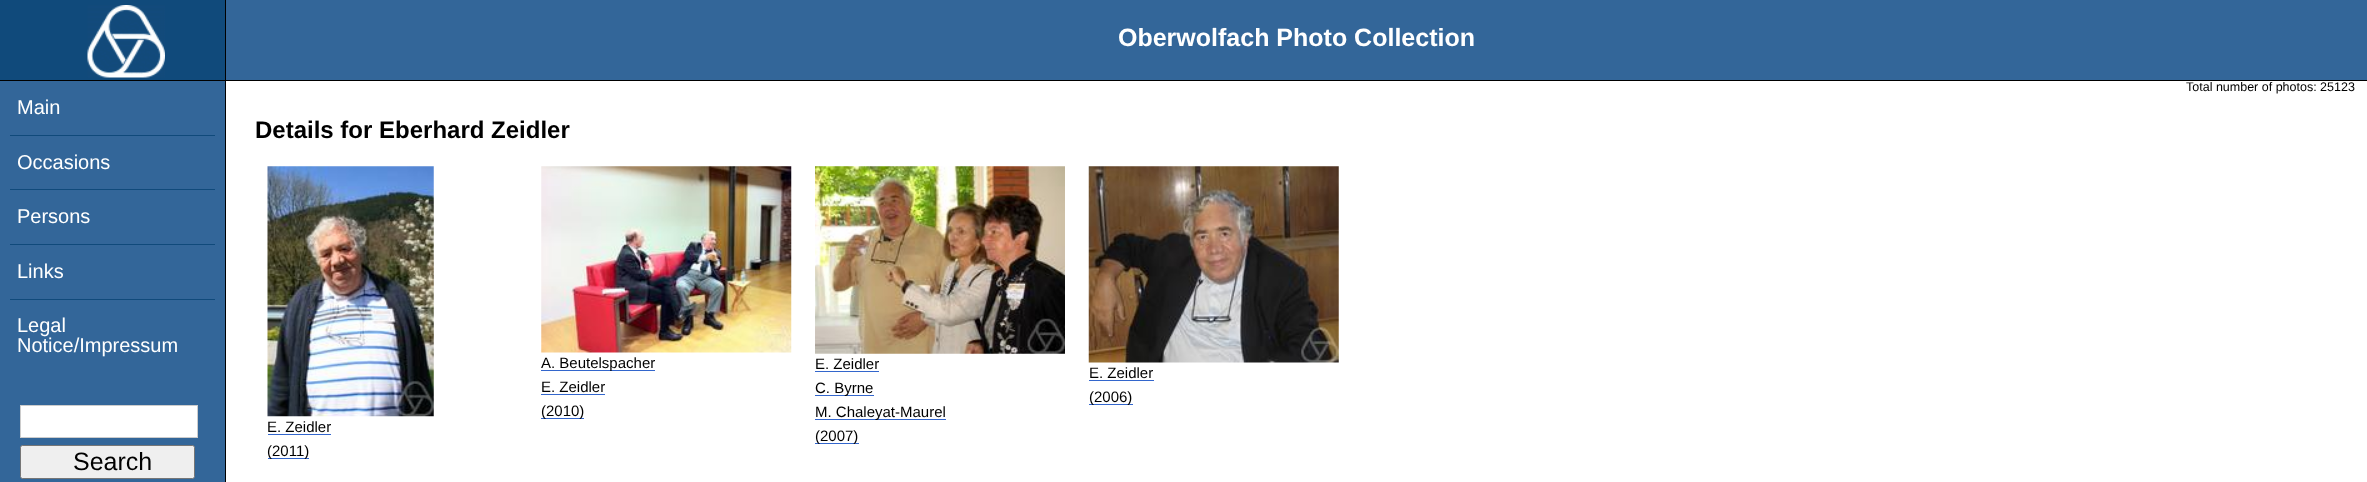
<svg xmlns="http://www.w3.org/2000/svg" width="2367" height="482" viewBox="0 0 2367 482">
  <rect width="100%" height="100%" fill="rgb(255,255,255)"/>
  <rect x="226" y="0" width="2141" height="80" fill="rgb(51,102,153)"/>
  <rect x="0" y="80" width="2367" height="1" fill="rgb(0,0,0)"/>
  <rect x="0" y="0" width="225" height="80" fill="rgb(16,74,123)"/>
  <rect x="225" y="0" width="1" height="80" fill="rgb(0,0,0)"/>
  <image x="87" y="5" width="78" height="73" href="pic1.png"/>
  <text x="1118" y="46" font-family="Liberation Sans" font-size="25" font-weight="bold" fill="rgb(255,255,255)">Oberwolfach Photo Collection</text>
  <text x="2186" y="91" font-family="Liberation Sans" font-size="12.5" fill="rgb(0,0,0)">Total number of photos: 25123</text>
  <rect x="0" y="81" width="225" height="401" fill="rgb(51,102,153)"/>
  <rect x="225" y="81" width="1" height="401" fill="rgb(0,0,0)"/>
  <text x="17" y="114" font-family="Liberation Sans" font-size="20" fill="rgb(255,255,255)">Main</text>
  <rect x="10" y="135" width="205" height="1" fill="rgb(16,74,123)"/>
  <text x="17" y="169" font-family="Liberation Sans" font-size="20" fill="rgb(255,255,255)">Occasions</text>
  <rect x="10" y="189" width="205" height="1" fill="rgb(16,74,123)"/>
  <text x="17" y="223" font-family="Liberation Sans" font-size="20" fill="rgb(255,255,255)">Persons</text>
  <rect x="10" y="244" width="205" height="1" fill="rgb(16,74,123)"/>
  <text x="17" y="278" font-family="Liberation Sans" font-size="20" fill="rgb(255,255,255)">Links</text>
  <rect x="10" y="299" width="205" height="1" fill="rgb(16,74,123)"/>
  <g font-family="Liberation Sans" font-size="20" fill="rgb(255,255,255)">
    <text>
      <tspan x="17" y="332">Legal</tspan>
      <tspan x="17" y="352">Notice/Impressum</tspan>
    </text>
  </g>
  <rect x="20.5" y="405.5" width="177" height="32" fill="rgb(255,255,255)" stroke="rgb(204,204,204)"/>
  <rect x="20.5" y="445.5" width="174" height="33" rx="2" fill="rgb(239,239,239)" stroke="rgb(118,118,118)"/>
  <text x="73" y="470" font-family="Liberation Sans" font-size="25" fill="rgb(0,0,0)">Search</text>
  <text x="255" y="138" font-family="Liberation Sans" font-size="24" font-weight="bold" fill="rgb(0,0,0)">Details for Eberhard Zeidler</text>
  <image x="541" y="166" width="251" height="187" href="pic2.png"/>
  <rect x="541" y="370" width="114" height="1" fill="rgb(51,102,204)"/>
  <g font-family="Liberation Sans" font-size="15" fill="rgb(0,0,0)">
    <text>
      <tspan x="541" y="368">A. Beutelspacher</tspan>
      <tspan x="541" y="392">E. Zeidler</tspan>
    </text>
  </g>
  <rect x="541" y="394" width="64" height="1" fill="rgb(51,102,204)"/>
  <rect x="541" y="418" width="43" height="1" fill="rgb(51,102,204)"/>
  <text x="541" y="416" font-family="Liberation Sans" font-size="15" fill="rgb(0,0,0)">(2010)</text>
  <image x="815" y="166" width="250" height="188" href="pic3.png"/>
  <text x="815" y="369" font-family="Liberation Sans" font-size="15" fill="rgb(0,0,0)">E. Zeidler</text>
  <rect x="815" y="371" width="64" height="1" fill="rgb(51,102,204)"/>
  <rect x="815" y="395" width="59" height="1" fill="rgb(51,102,204)"/>
  <text x="815" y="393" font-family="Liberation Sans" font-size="15" fill="rgb(0,0,0)">C. Byrne</text>
  <rect x="815" y="419" width="131" height="1" fill="rgb(51,102,204)"/>
  <text x="815" y="417" font-family="Liberation Sans" font-size="15" fill="rgb(0,0,0)">M. Chaleyat-Maurel</text>
  <rect x="815" y="443" width="44" height="1" fill="rgb(51,102,204)"/>
  <text x="815" y="441" font-family="Liberation Sans" font-size="15" fill="rgb(0,0,0)">(2007)</text>
  <image x="1088" y="166" width="251" height="197" href="pic4.png"/>
  <text x="1089" y="378" font-family="Liberation Sans" font-size="15" fill="rgb(0,0,0)">E. Zeidler</text>
  <rect x="1089" y="380" width="65" height="1" fill="rgb(51,102,204)"/>
  <rect x="1089" y="404" width="44" height="1" fill="rgb(51,102,204)"/>
  <text x="1089" y="402" font-family="Liberation Sans" font-size="15" fill="rgb(0,0,0)">(2006)</text>
  <image x="267" y="166" width="167" height="251" href="pic5.png"/>
  <text x="267" y="432" font-family="Liberation Sans" font-size="15" fill="rgb(0,0,0)">E. Zeidler</text>
  <rect x="268" y="434" width="63" height="1" fill="rgb(51,102,204)"/>
  <rect x="268" y="458" width="41" height="1" fill="rgb(51,102,204)"/>
  <text x="267" y="456" font-family="Liberation Sans" font-size="15" fill="rgb(0,0,0)">(2011)</text>
</svg>
